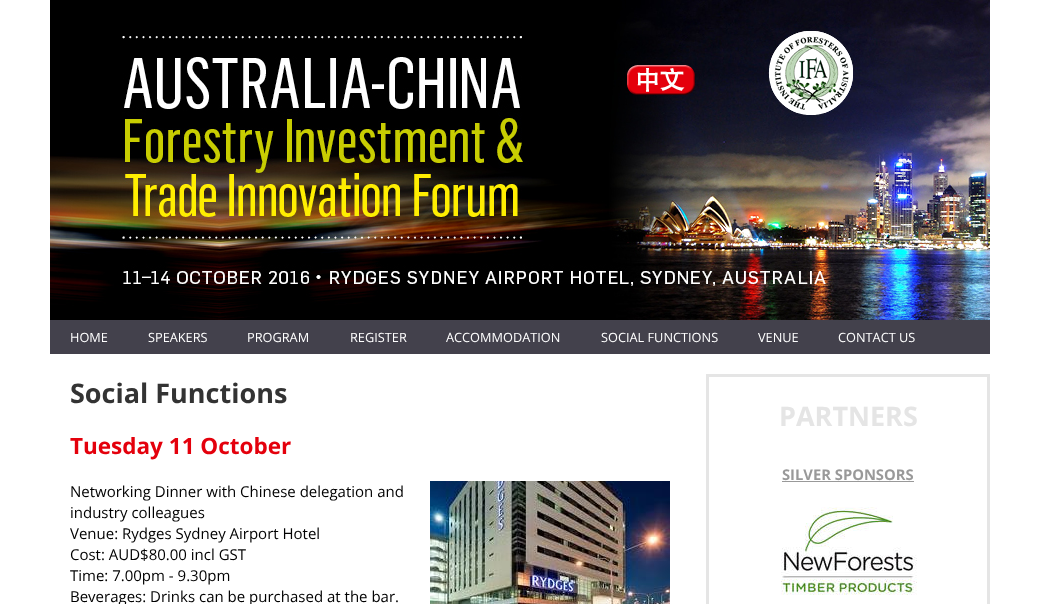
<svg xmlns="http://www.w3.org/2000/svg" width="1040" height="604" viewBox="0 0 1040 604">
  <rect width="100%" height="100%" fill="rgb(255,255,255)"/>
  <image x="50" y="0" width="940" height="320" href="pic1.png"/>
  <image x="627" y="65" width="69" height="30" href="pic2.png"/>
  <image x="768" y="31" width="85" height="84" href="pic3.png"/>
  <rect x="50" y="320" width="940" height="34" fill="rgb(67,65,76)"/>
  <g font-family="Open Sans" font-size="12.75" fill="rgb(255,255,255)">
    <text x="70" y="342">HOME</text>
    <text x="148" y="342">SPEAKERS</text>
    <text x="247" y="342">PROGRAM</text>
    <text x="350" y="342">REGISTER</text>
    <text x="446" y="342">ACCOMMODATION</text>
    <text x="601" y="342">SOCIAL FUNCTIONS</text>
    <text x="758" y="342">VENUE</text>
    <text x="838" y="342">CONTACT US</text>
  </g>
  <text x="70" y="403" font-family="Open Sans" font-size="27" font-weight="bold" fill="rgb(51,51,51)">Social Functions</text>
  <text x="70" y="454" font-family="Open Sans" font-size="22.5" font-weight="bold" fill="rgb(228,0,12)">Tuesday 11 October</text>
  <g font-family="Open Sans" font-size="15" fill="rgb(0,0,0)">
    <text>
      <tspan x="70" y="497">Networking Dinner with Chinese delegation and</tspan>
      <tspan x="70" y="518">industry colleagues</tspan>
      <tspan x="70" y="539">Venue: Rydges Sydney Airport Hotel</tspan>
      <tspan x="70" y="560">Cost: AUD$80.00 incl GST</tspan>
      <tspan x="70" y="581">Time: 7.00pm - 9.30pm</tspan>
      <tspan x="70" y="602">Beverages: Drinks can be purchased at the bar.</tspan>
    </text>
  </g>
  <image x="430" y="481" width="240" height="123" href="pic4.png"/>
  <rect x="707.5" y="375.5" width="281" height="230" fill="none" stroke="rgb(229,229,229)" stroke-width="3"/>
  <text x="779" y="426" font-family="Open Sans" font-size="27" font-weight="bold" fill="rgb(229,229,229)">PARTNERS</text>
  <text x="782" y="480" font-family="Open Sans" font-size="14.75" font-weight="bold" fill="rgb(153,153,153)">SILVER SPONSORS</text>
  <rect x="782" y="481" width="132" height="1" fill="rgb(153,153,153)"/>
  <image x="781" y="507" width="136" height="88" href="pic5.png"/>
</svg>
